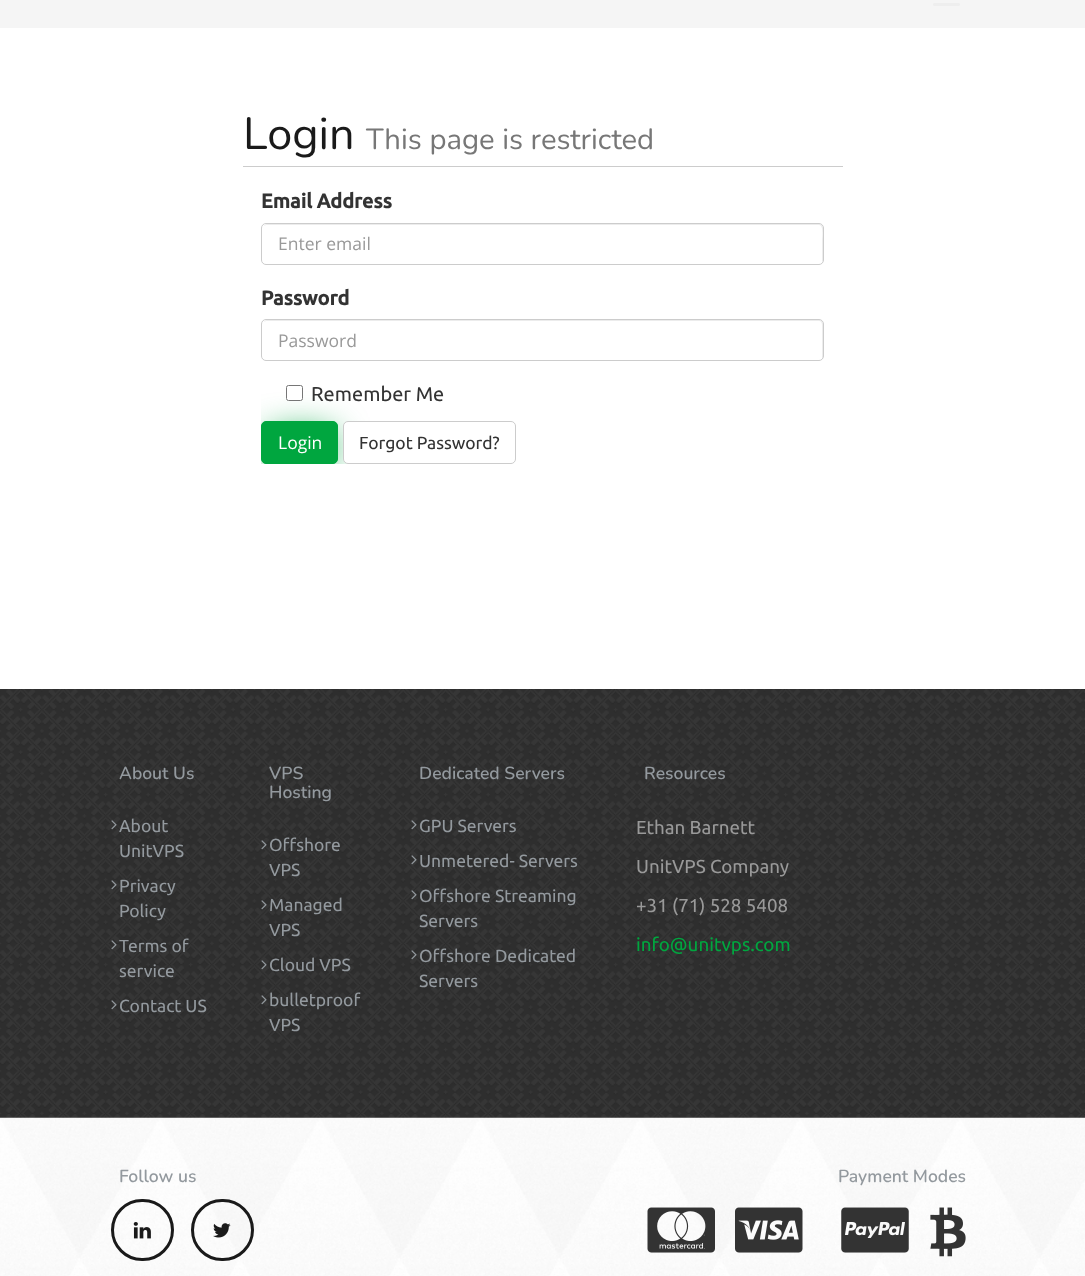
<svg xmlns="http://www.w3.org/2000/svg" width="1085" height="1276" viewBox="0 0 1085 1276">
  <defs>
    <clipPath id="clip1"><rect x="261" y="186" width="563" height="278"/></clipPath>
  </defs>
  <rect width="100%" height="100%" fill="rgb(255,255,255)"/>
  <rect x="0" y="0" width="1085" height="28" fill="rgb(245,245,245)"/>
  <rect x="933" y="3" width="27" height="3" rx="1.5" fill="rgb(238,238,238)"/>
  <rect x="243" y="166" width="600" height="1" fill="rgb(204,204,204)"/>
  <text x="243" y="149" font-family="Nunito" font-size="45" fill="rgb(26,26,26)">Login</text>
  <text x="366" y="149" font-family="Nunito" font-size="29.25" fill="rgb(119,119,119)">This page is restricted</text>
  <text x="261" y="208" font-family="Ubuntu" font-size="20" font-weight="bold" fill="rgb(51,51,51)">Email Address</text>
  <path d="M266 225H819C824 225 822 238 822 240V263C822 262 823 261 823 260V228C823 226 821 224 819 224H267C266 224 264 225 264 226Z" fill="rgb(236,236,236)"/>
  <rect x="261.5" y="223.5" width="562" height="41" rx="4.5" fill="none" stroke="rgb(204,204,204)"/>
  <text x="278" y="250" font-family="Open Sans" font-size="17.5" fill="rgb(153,153,153)">Enter email</text>
  <text x="261" y="305" font-family="Ubuntu" font-size="20" font-weight="bold" fill="rgb(51,51,51)">Password</text>
  <path d="M266 321H819C821 321 822 323 822 325V359C823 358 823 357 823 356V324C823 322 821 320 819 320H267C266 320 264 321 264 322Z" fill="rgb(236,236,236)"/>
  <rect x="261.5" y="319.5" width="562" height="41" rx="4.5" fill="none" stroke="rgb(204,204,204)"/>
  <text x="278" y="347" font-family="Open Sans" font-size="17.5" fill="rgb(153,153,153)">Password</text>
  <g clip-path="url(#clip1)">
    <rect x="269" y="433" width="64" height="30" fill="rgb(0,166,63)" filter="blur(17.5px)"/>
  </g>
  <rect x="286.5" y="385.5" width="16" height="15" rx="2" fill="rgb(255,255,255)" stroke="rgb(118,118,118)"/>
  <text x="311" y="401" font-family="Ubuntu" font-size="20" fill="rgb(51,51,51)">Remember Me</text>
  <rect x="261.5" y="421.5" width="76" height="42" rx="4.5" fill="rgb(0,166,63)" stroke="rgb(0,166,63)"/>
  <text x="278" y="449" font-family="Open Sans" font-size="17.5" fill="rgb(255,255,255)">Login</text>
  <rect x="343.5" y="421.5" width="172" height="42" rx="4.5" fill="rgb(255,255,255)" stroke="rgb(204,204,204)"/>
  <text x="359" y="449" font-family="Ubuntu" font-size="17.5" fill="rgb(51,51,51)">Forgot Password?</text>
  <image x="0" y="689" width="1085" height="429" href="pic1.png"/>
  <text x="119" y="779" font-family="Nunito" font-size="17.5" font-weight="600" fill="rgb(147,153,158)">About Us</text>
  <image x="111" y="820" width="6" height="10" href="pic2.png"/>
  <g font-family="Ubuntu" font-size="17.5" fill="rgb(147,153,158)">
    <text>
      <tspan x="119" y="832">About</tspan>
      <tspan x="119" y="857">UnitVPS</tspan>
    </text>
  </g>
  <image x="111" y="880" width="6" height="10" href="pic3.png"/>
  <g font-family="Ubuntu" font-size="17.5" fill="rgb(147,153,158)">
    <text>
      <tspan x="119" y="892">Privacy</tspan>
      <tspan x="119" y="917">Policy</tspan>
    </text>
  </g>
  <image x="111" y="940" width="6" height="10" href="pic4.png"/>
  <g font-family="Ubuntu" font-size="17.5" fill="rgb(147,153,158)">
    <text>
      <tspan x="119" y="952">Terms of</tspan>
      <tspan x="119" y="977">service</tspan>
    </text>
  </g>
  <image x="111" y="1000" width="6" height="10" href="pic5.png"/>
  <text x="119" y="1012" font-family="Ubuntu" font-size="17.5" fill="rgb(147,153,158)">Contact US</text>
  <g font-family="Nunito" font-size="17.5" font-weight="600" fill="rgb(147,153,158)">
    <text>
      <tspan x="269" y="779">VPS</tspan>
      <tspan x="269" y="798">Hosting</tspan>
    </text>
  </g>
  <image x="261" y="840" width="6" height="10" href="pic6.png"/>
  <g font-family="Ubuntu" font-size="17.5" fill="rgb(147,153,158)">
    <text>
      <tspan x="269" y="851">Offshore</tspan>
      <tspan x="269" y="876">VPS</tspan>
    </text>
  </g>
  <image x="261" y="900" width="6" height="10" href="pic7.png"/>
  <g font-family="Ubuntu" font-size="17.5" fill="rgb(147,153,158)">
    <text>
      <tspan x="269" y="911">Managed</tspan>
      <tspan x="269" y="936">VPS</tspan>
    </text>
  </g>
  <image x="261" y="960" width="6" height="10" href="pic8.png"/>
  <text x="269" y="971" font-family="Ubuntu" font-size="17.5" fill="rgb(147,153,158)">Cloud VPS</text>
  <image x="261" y="995" width="6" height="10" href="pic9.png"/>
  <g font-family="Ubuntu" font-size="17.5" fill="rgb(147,153,158)">
    <text>
      <tspan x="269" y="1006">bulletproof</tspan>
      <tspan x="269" y="1031">VPS</tspan>
    </text>
  </g>
  <text x="419" y="779" font-family="Nunito" font-size="17.5" font-weight="600" fill="rgb(147,153,158)">Dedicated Servers</text>
  <image x="411" y="820" width="6" height="10" href="pic10.png"/>
  <text x="419" y="832" font-family="Ubuntu" font-size="17.5" fill="rgb(147,153,158)">GPU Servers</text>
  <image x="411" y="855" width="6" height="10" href="pic11.png"/>
  <text x="419" y="867" font-family="Ubuntu" font-size="17.5" fill="rgb(147,153,158)">Unmetered- Servers</text>
  <image x="411" y="890" width="6" height="10" href="pic12.png"/>
  <g font-family="Ubuntu" font-size="17.5" fill="rgb(147,153,158)">
    <text>
      <tspan x="419" y="902">Offshore Streaming</tspan>
      <tspan x="419" y="927">Servers</tspan>
    </text>
  </g>
  <image x="411" y="950" width="6" height="10" href="pic13.png"/>
  <g font-family="Ubuntu" font-size="17.5" fill="rgb(147,153,158)">
    <text>
      <tspan x="419" y="962">Offshore Dedicated</tspan>
      <tspan x="419" y="987">Servers</tspan>
    </text>
  </g>
  <text x="644" y="779" font-family="Nunito" font-size="17.5" font-weight="600" fill="rgb(147,153,158)">Resources</text>
  <g font-family="Ubuntu" font-size="18.75" fill="rgb(153,153,153)">
    <text x="636" y="834">Ethan Barnett</text>
    <text x="636" y="873">UnitVPS Company</text>
    <text x="636" y="912">+31 (71) 528 5408</text>
  </g>
  <text x="636" y="951" font-family="Ubuntu" font-size="18.75" fill="rgb(0,166,63)">info@unitvps.com</text>
  <image x="0" y="1117" width="1085" height="159" href="pic14.png"/>
  <text x="119" y="1182" font-family="Nunito" font-size="17.5" font-weight="600" fill="rgb(147,153,158)">Follow us</text>
  <rect x="112.5" y="1200.5" width="60" height="59" rx="29.5" fill="none" stroke="rgb(26,26,26)" stroke-width="3"/>
  <image x="133" y="1222" width="18" height="17" href="pic15.png"/>
  <rect x="192.5" y="1200.5" width="60" height="59" rx="29.5" fill="none" stroke="rgb(26,26,26)" stroke-width="3"/>
  <image x="213" y="1223" width="18" height="15" href="pic16.png"/>
  <text x="838" y="1182" font-family="Nunito" font-size="17.5" font-weight="600" fill="rgb(147,153,158)">Payment Modes</text>
  <image x="647" y="1207" width="68" height="46" href="pic17.png"/>
  <image x="735" y="1207" width="68" height="46" href="pic18.png"/>
  <image x="841" y="1207" width="68" height="46" href="pic19.png"/>
  <image x="930" y="1207" width="36" height="50" href="pic20.png"/>
</svg>
